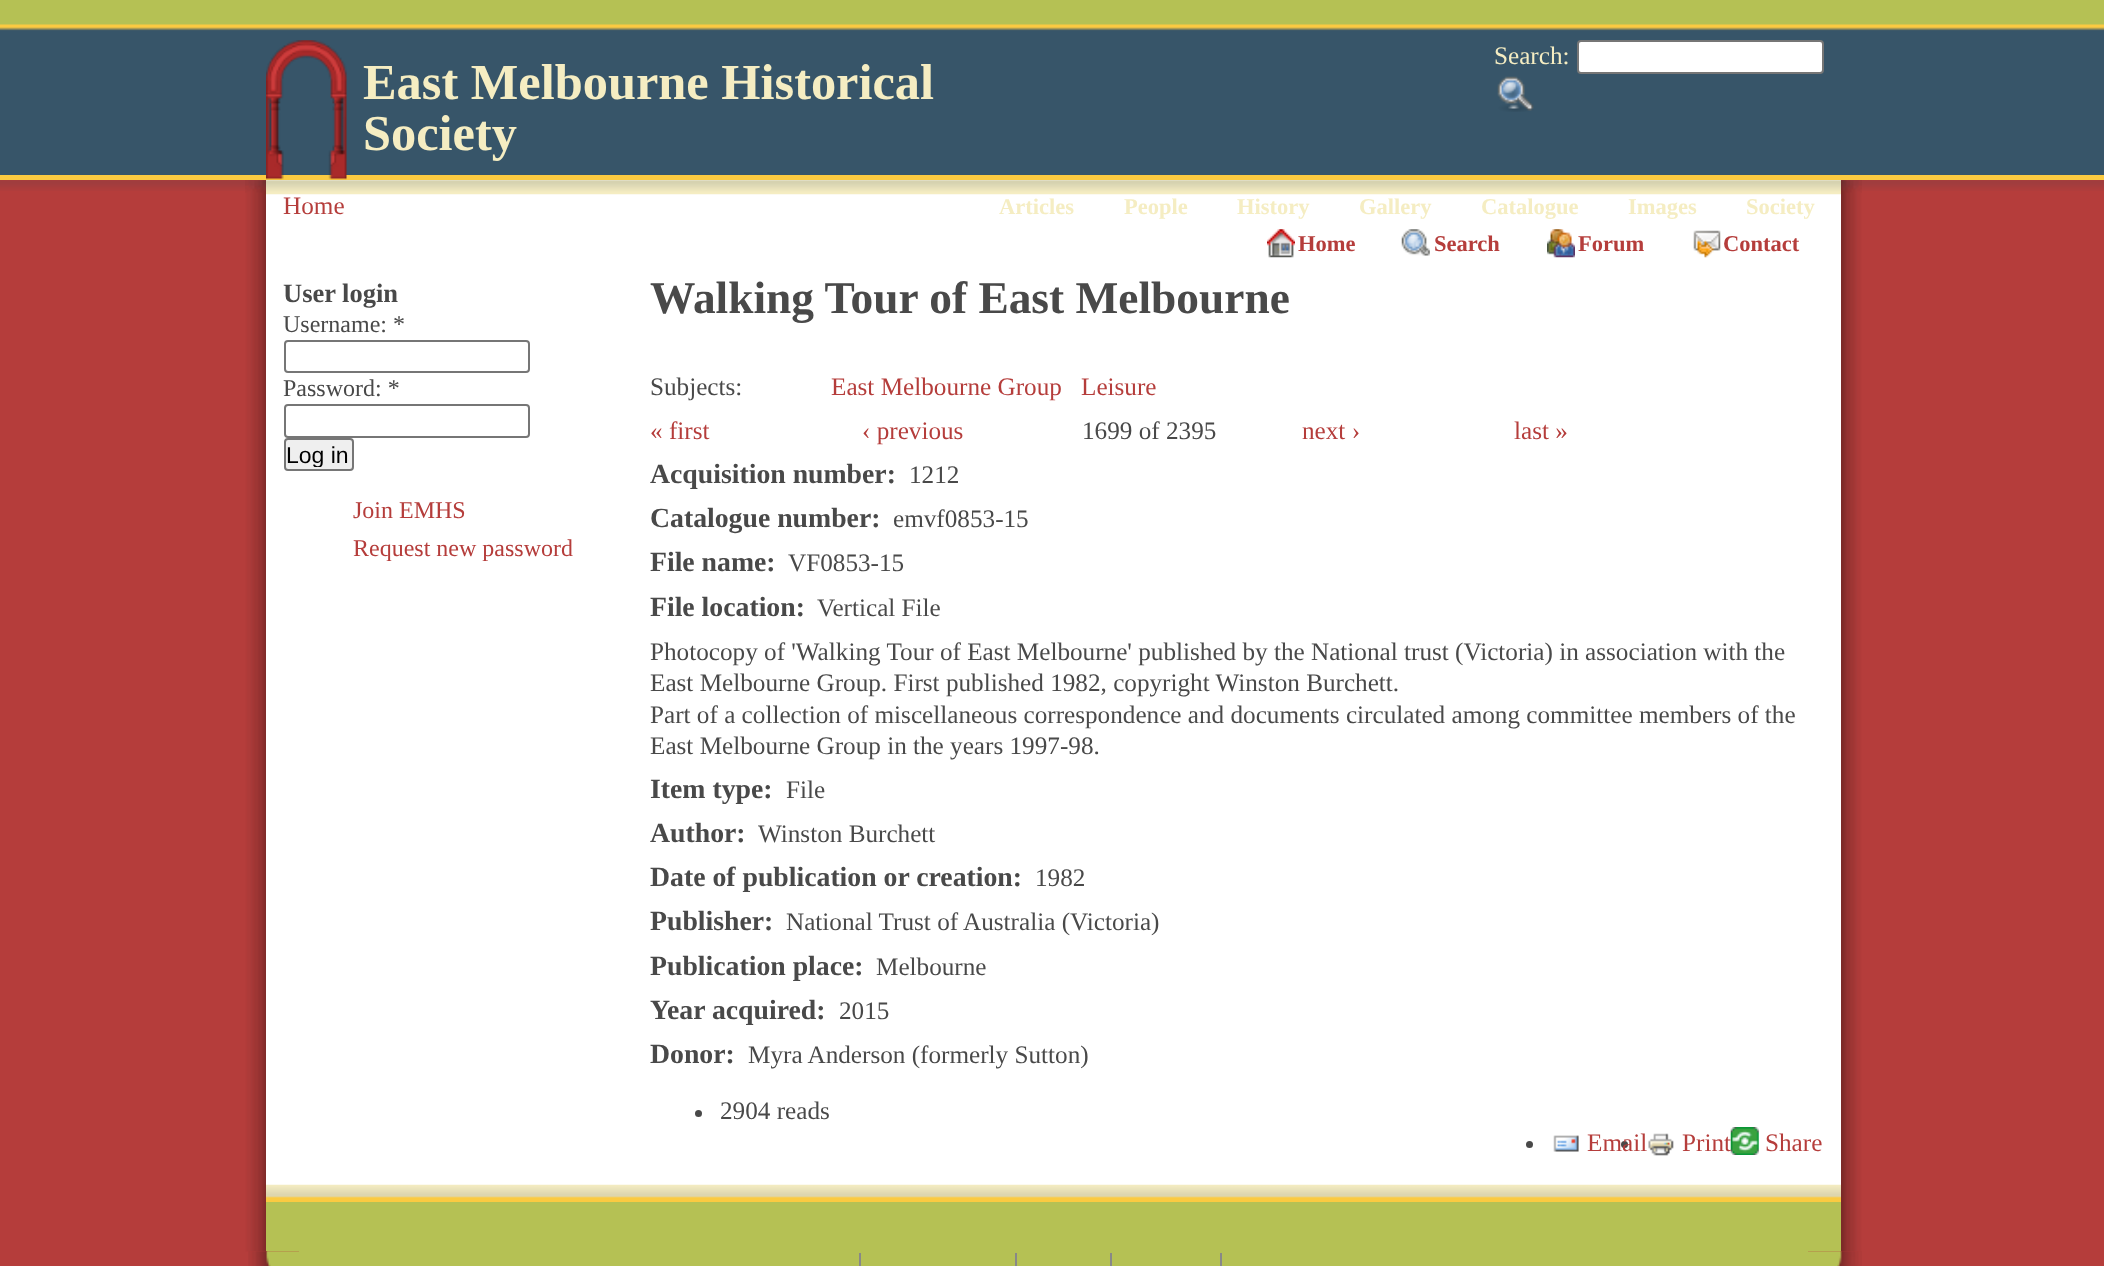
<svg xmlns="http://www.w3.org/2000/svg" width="2104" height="1266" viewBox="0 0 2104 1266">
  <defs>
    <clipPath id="clip1"><rect x="287" y="441" width="63" height="26"/></clipPath>
  </defs>
  <rect width="100%" height="100%" fill="rgb(181,193,84)"/>
  <rect x="0" y="31" width="2104" height="144" fill="rgb(55,85,105)"/>
  <image x="0" y="24" width="2104" height="7" href="pic1.png"/>
  <rect x="0" y="175" width="2104" height="5" fill="rgb(251,202,65)"/>
  <image x="266" y="40" width="81" height="140" href="pic2.png"/>
  <text x="1494" y="64" font-family="Liberation Serif" font-size="25.2" fill="rgb(245,237,194)">Search:</text>
  <rect x="1578" y="41" width="245" height="32" rx="3" fill="rgb(255,255,255)" stroke="rgb(118,118,118)" stroke-width="2"/>
  <image x="1497" y="76" width="37" height="36" href="pic3.png"/>
  <g font-family="Liberation Serif" font-size="50.4" font-weight="bold" fill="rgb(245,237,194)">
    <text>
      <tspan x="363" y="99">East Melbourne Historical</tspan>
      <tspan x="363" y="150">Society</tspan>
    </text>
  </g>
  <rect x="0" y="180" width="2104" height="1086" fill="rgb(181,61,59)"/>
  <image x="0" y="180" width="2104" height="11" href="pic4.png"/>
  <image x="245" y="180" width="23" height="1072" href="pic6.png"/>
  <rect x="266" y="180" width="1575" height="1005" fill="rgb(255,255,255)"/>
  <g font-family="Liberation Serif" font-size="22.5" font-weight="bold" fill="rgb(245,237,194)">
    <text x="999" y="214">Articles</text>
    <text x="1124" y="214">People</text>
    <text x="1237" y="214">History</text>
    <text x="1359" y="214">Gallery</text>
    <text x="1481" y="214">Catalogue</text>
    <text x="1628" y="214">Images</text>
    <text x="1746" y="214">Society</text>
  </g>
  <image x="1841" y="180" width="21" height="1072" href="pic5.png"/>
  <image x="266" y="180" width="1575" height="15" href="pic7.png"/>
  <text x="283" y="214" font-family="Liberation Serif" font-size="25.2" fill="rgb(181,61,59)">Home</text>
  <image x="1267" y="229" width="28" height="29" href="pic8.png"/>
  <text x="1298" y="251" font-family="Liberation Serif" font-size="22.5" font-weight="bold" fill="rgb(181,61,59)">Home</text>
  <image x="1401" y="229" width="29" height="27" href="pic9.png"/>
  <text x="1434" y="251" font-family="Liberation Serif" font-size="22.5" font-weight="bold" fill="rgb(181,61,59)">Search</text>
  <image x="1547" y="229" width="28" height="29" href="pic10.png"/>
  <text x="1578" y="251" font-family="Liberation Serif" font-size="22.5" font-weight="bold" fill="rgb(181,61,59)">Forum</text>
  <image x="1693" y="230" width="28" height="28" href="pic11.png"/>
  <text x="1723" y="251" font-family="Liberation Serif" font-size="22.5" font-weight="bold" fill="rgb(181,61,59)">Contact</text>
  <text x="283" y="302" font-family="Liberation Serif" font-size="26.5" font-weight="bold" fill="rgb(73,73,73)">User login</text>
  <text x="283" y="332" font-family="Liberation Serif" font-size="24" fill="rgb(73,73,73)">Username: *</text>
  <rect x="285" y="341" width="244" height="31" rx="3" fill="none" stroke="rgb(118,118,118)" stroke-width="2"/>
  <text x="283" y="396" font-family="Liberation Serif" font-size="24" fill="rgb(73,73,73)">Password: *</text>
  <rect x="285" y="405" width="244" height="32" rx="3" fill="none" stroke="rgb(118,118,118)" stroke-width="2"/>
  <rect x="285" y="439" width="68" height="31" rx="3" fill="rgb(239,239,239)" stroke="rgb(118,118,118)" stroke-width="2"/>
  <g clip-path="url(#clip1)">
    <text x="286" y="463" font-family="Liberation Sans" font-size="23" fill="rgb(0,0,0)">Log in</text>
  </g>
  <g font-family="Liberation Serif" font-size="24" fill="rgb(181,61,59)">
    <text>
      <tspan x="353" y="518">Join EMHS</tspan>
      <tspan x="353" y="556">Request new password</tspan>
    </text>
  </g>
  <text x="650" y="313" font-family="Liberation Serif" font-size="45.4" font-weight="bold" fill="rgb(73,73,73)">Walking Tour of East Melbourne</text>
  <text x="650" y="395" font-family="Liberation Serif" font-size="25.2" fill="rgb(73,73,73)">Subjects:</text>
  <g font-family="Liberation Serif" font-size="25.2" fill="rgb(181,61,59)">
    <text x="831" y="395">East Melbourne Group</text>
    <text x="1081" y="395">Leisure</text>
    <text x="650" y="439">« first</text>
    <text x="862" y="439">‹ previous</text>
  </g>
  <text x="1082" y="439" font-family="Liberation Serif" font-size="25.2" fill="rgb(73,73,73)">1699 of 2395</text>
  <g font-family="Liberation Serif" font-size="25.2" fill="rgb(181,61,59)">
    <text x="1302" y="439">next ›</text>
    <text x="1514" y="439">last »</text>
  </g>
  <text x="650" y="483" font-family="Liberation Serif" font-size="27.75" font-weight="bold" fill="rgb(73,73,73)">Acquisition number:</text>
  <text x="909" y="483" font-family="Liberation Serif" font-size="25.2" fill="rgb(73,73,73)">1212</text>
  <text x="650" y="527" font-family="Liberation Serif" font-size="27.75" font-weight="bold" fill="rgb(73,73,73)">Catalogue number:</text>
  <text x="893" y="527" font-family="Liberation Serif" font-size="25.2" fill="rgb(73,73,73)">emvf0853-15</text>
  <text x="650" y="571" font-family="Liberation Serif" font-size="27.75" font-weight="bold" fill="rgb(73,73,73)">File name:</text>
  <text x="788" y="571" font-family="Liberation Serif" font-size="25.2" fill="rgb(73,73,73)">VF0853-15</text>
  <text x="650" y="616" font-family="Liberation Serif" font-size="27.75" font-weight="bold" fill="rgb(73,73,73)">File location:</text>
  <g font-family="Liberation Serif" font-size="25.2" fill="rgb(73,73,73)">
    <text x="817" y="616">Vertical File</text>
    <text>
      <tspan x="650" y="660">Photocopy of 'Walking Tour of East Melbourne' published by the National trust (Victoria) in association with the</tspan>
      <tspan x="650" y="691">East Melbourne Group. First published 1982, copyright Winston Burchett.</tspan>
      <tspan x="650" y="723">Part of a collection of miscellaneous correspondence and documents circulated among committee members of the</tspan>
      <tspan x="650" y="754">East Melbourne Group in the years 1997-98.</tspan>
    </text>
  </g>
  <text x="650" y="798" font-family="Liberation Serif" font-size="27.75" font-weight="bold" fill="rgb(73,73,73)">Item type:</text>
  <text x="786" y="798" font-family="Liberation Serif" font-size="25.2" fill="rgb(73,73,73)">File</text>
  <text x="650" y="842" font-family="Liberation Serif" font-size="27.75" font-weight="bold" fill="rgb(73,73,73)">Author:</text>
  <text x="758" y="842" font-family="Liberation Serif" font-size="25.2" fill="rgb(73,73,73)">Winston Burchett</text>
  <text x="650" y="886" font-family="Liberation Serif" font-size="27.75" font-weight="bold" fill="rgb(73,73,73)">Date of publication or creation:</text>
  <text x="1035" y="886" font-family="Liberation Serif" font-size="25.2" fill="rgb(73,73,73)">1982</text>
  <text x="650" y="930" font-family="Liberation Serif" font-size="27.75" font-weight="bold" fill="rgb(73,73,73)">Publisher:</text>
  <text x="786" y="930" font-family="Liberation Serif" font-size="25.2" fill="rgb(73,73,73)">National Trust of Australia (Victoria)</text>
  <text x="650" y="975" font-family="Liberation Serif" font-size="27.75" font-weight="bold" fill="rgb(73,73,73)">Publication place:</text>
  <text x="876" y="975" font-family="Liberation Serif" font-size="25.2" fill="rgb(73,73,73)">Melbourne</text>
  <text x="650" y="1019" font-family="Liberation Serif" font-size="27.75" font-weight="bold" fill="rgb(73,73,73)">Year acquired:</text>
  <text x="839" y="1019" font-family="Liberation Serif" font-size="25.2" fill="rgb(73,73,73)">2015</text>
  <text x="650" y="1063" font-family="Liberation Serif" font-size="27.75" font-weight="bold" fill="rgb(73,73,73)">Donor:</text>
  <text x="748" y="1063" font-family="Liberation Serif" font-size="25.2" fill="rgb(73,73,73)">Myra Anderson (formerly Sutton)</text>
  <circle cx="698.5" cy="1113.5" r="3.5" fill="rgb(73,73,73)"/>
  <text x="720" y="1119" font-family="Liberation Serif" font-size="25.2" fill="rgb(73,73,73)">2904 reads</text>
  <circle cx="1529.5" cy="1144.5" r="3.5" fill="rgb(73,73,73)"/>
  <image x="1553" y="1135" width="26" height="17" href="pic12.png"/>
  <circle cx="1624.5" cy="1144.5" r="3.5" fill="rgb(73,73,73)"/>
  <text x="1587" y="1151" font-family="Liberation Serif" font-size="25.2" fill="rgb(181,61,59)">Email</text>
  <image x="1648" y="1133" width="26" height="23" href="pic13.png"/>
  <image x="1730" y="1127" width="29" height="28" href="pic14.png"/>
  <g font-family="Liberation Serif" font-size="25.2" fill="rgb(181,61,59)">
    <text x="1682" y="1151">Print</text>
    <text x="1765" y="1151">Share</text>
  </g>
  <image x="266" y="1184" width="1575" height="18" href="pic15.png"/>
  <rect x="266" y="1202" width="1575" height="49" fill="rgb(181,193,84)"/>
  <rect x="299" y="1251" width="1509" height="15" fill="rgb(181,193,84)"/>
  <rect x="859" y="1253" width="2" height="13" fill="rgb(136,136,136)"/>
  <rect x="1015" y="1253" width="2" height="13" fill="rgb(136,136,136)"/>
  <rect x="1110" y="1253" width="2" height="13" fill="rgb(136,136,136)"/>
  <rect x="1220" y="1253" width="2" height="13" fill="rgb(136,136,136)"/>
  <image x="1808" y="1251" width="54" height="15" href="pic16.png"/>
  <image x="248" y="1251" width="51" height="15" href="pic17.png"/>
</svg>
